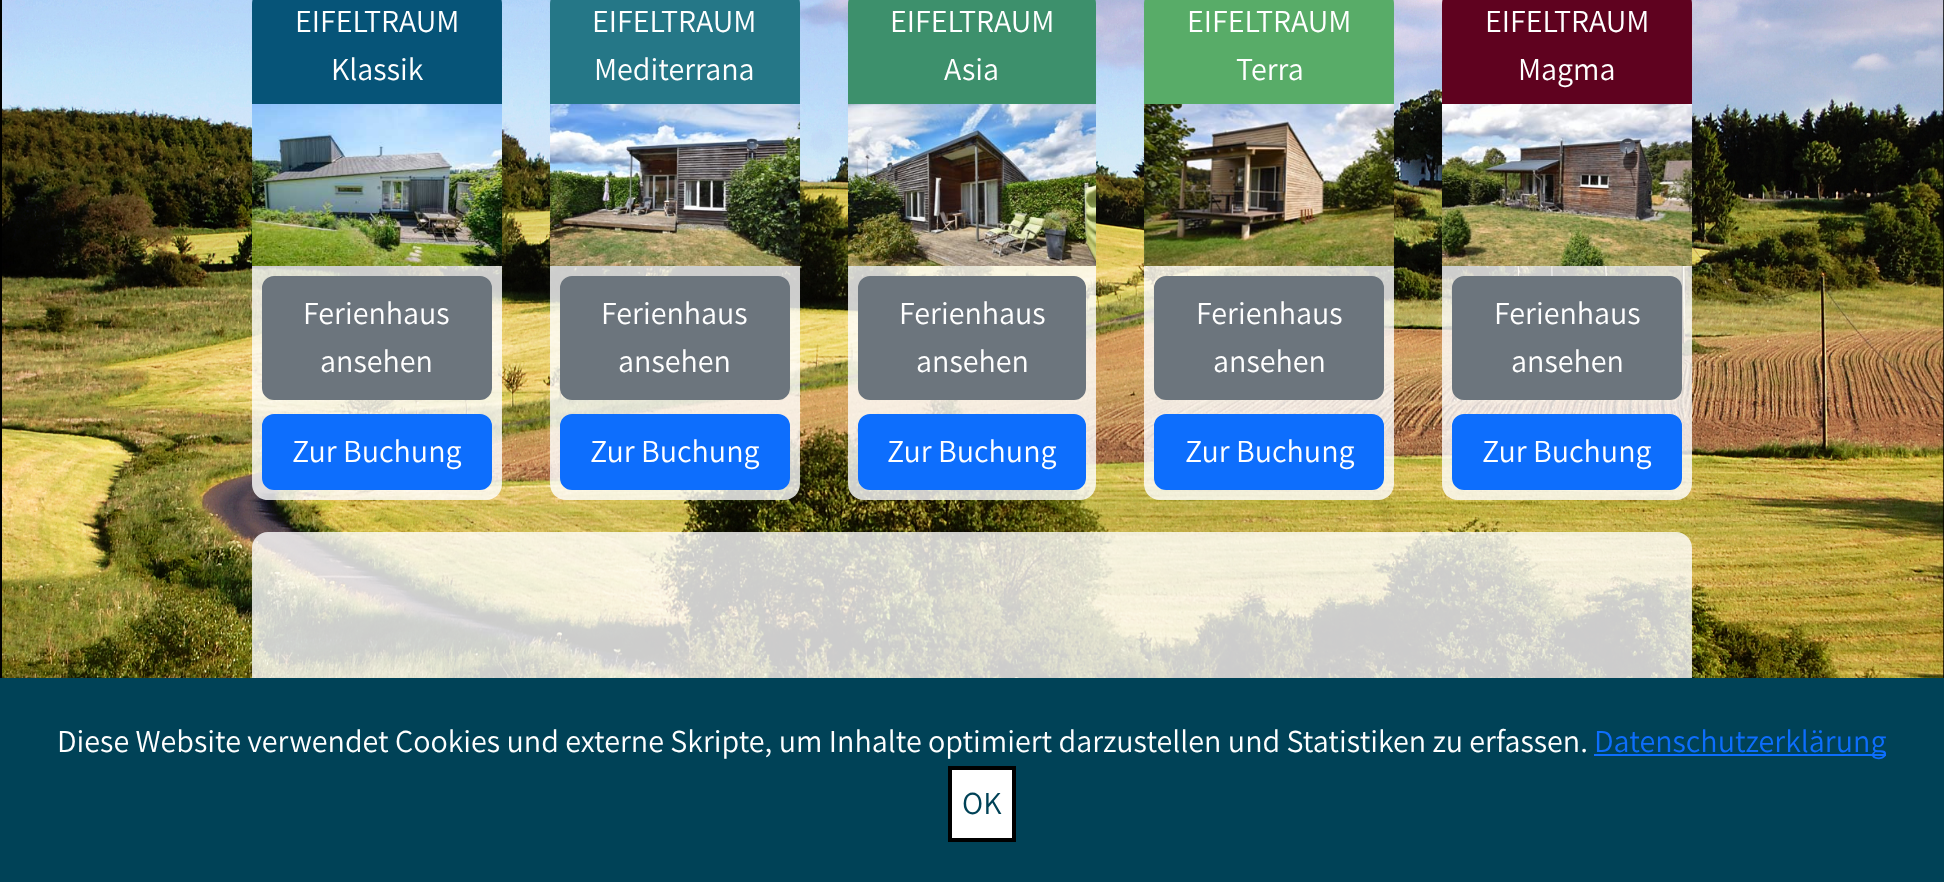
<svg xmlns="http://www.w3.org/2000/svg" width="1944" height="882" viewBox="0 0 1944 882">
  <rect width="100%" height="100%" fill="rgb(255,255,255)"/>
  <image x="0" y="0" width="1944" height="678" href="pic1.png"/>
  <path d="M268-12H486C495-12 502-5 502 4V104H252V4C252-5 259-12 268-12Z" fill="rgb(6,84,120)"/>
  <g font-family="Assistant" font-size="32" fill="rgb(255,255,255)">
    <text x="295" y="32">EIFELTRAUM</text>
    <text x="331" y="80">Klassik</text>
  </g>
  <image x="252" y="104" width="250" height="162" href="pic2.png"/>
  <path d="M252 266H502V484C502 493 495 500 486 500H268C259 500 252 493 252 484Z" fill="rgba(255,255,255,0.8)"/>
  <rect x="263" y="277" width="228" height="122" rx="11" fill="rgb(108,117,125)" stroke="rgb(108,117,125)" stroke-width="2"/>
  <g font-family="Assistant" font-size="32" fill="rgb(255,255,255)">
    <text x="303" y="324">Ferienhaus</text>
    <text x="320" y="372">ansehen</text>
  </g>
  <rect x="263" y="415" width="228" height="74" rx="11" fill="rgb(13,110,253)" stroke="rgb(13,110,253)" stroke-width="2"/>
  <text x="292" y="462" font-family="Assistant" font-size="32" fill="rgb(255,255,255)">Zur Buchung</text>
  <path d="M566-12H784C793-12 800-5 800 4V104H550V4C550-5 557-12 566-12Z" fill="rgb(37,119,135)"/>
  <g font-family="Assistant" font-size="32" fill="rgb(255,255,255)">
    <text x="592" y="32">EIFELTRAUM</text>
    <text x="594" y="80">Mediterrana</text>
  </g>
  <image x="550" y="104" width="250" height="162" href="pic3.png"/>
  <path d="M550 266H800V484C800 493 793 500 784 500H566C557 500 550 493 550 484Z" fill="rgba(255,255,255,0.8)"/>
  <rect x="561" y="277" width="228" height="122" rx="11" fill="rgb(108,117,125)" stroke="rgb(108,117,125)" stroke-width="2"/>
  <g font-family="Assistant" font-size="32" fill="rgb(255,255,255)">
    <text x="601" y="324">Ferienhaus</text>
    <text x="618" y="372">ansehen</text>
  </g>
  <rect x="561" y="415" width="228" height="74" rx="11" fill="rgb(13,110,253)" stroke="rgb(13,110,253)" stroke-width="2"/>
  <text x="590" y="462" font-family="Assistant" font-size="32" fill="rgb(255,255,255)">Zur Buchung</text>
  <path d="M864-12H1080C1089-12 1096-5 1096 4V104H848V4C848-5 855-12 864-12Z" fill="rgb(61,144,108)"/>
  <g font-family="Assistant" font-size="32" fill="rgb(255,255,255)">
    <text x="890" y="32">EIFELTRAUM</text>
    <text x="944" y="80">Asia</text>
  </g>
  <image x="848" y="104" width="248" height="162" href="pic4.png"/>
  <path d="M848 266H1096V484C1096 493 1089 500 1080 500H864C855 500 848 493 848 484Z" fill="rgba(255,255,255,0.8)"/>
  <rect x="859" y="277" width="226" height="122" rx="11" fill="rgb(108,117,125)" stroke="rgb(108,117,125)" stroke-width="2"/>
  <g font-family="Assistant" font-size="32" fill="rgb(255,255,255)">
    <text x="899" y="324">Ferienhaus</text>
    <text x="916" y="372">ansehen</text>
  </g>
  <rect x="859" y="415" width="226" height="74" rx="11" fill="rgb(13,110,253)" stroke="rgb(13,110,253)" stroke-width="2"/>
  <text x="887" y="462" font-family="Assistant" font-size="32" fill="rgb(255,255,255)">Zur Buchung</text>
  <path d="M1160-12H1378C1387-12 1394-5 1394 4V104H1144V4C1144-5 1151-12 1160-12Z" fill="rgb(88,172,104)"/>
  <g font-family="Assistant" font-size="32" fill="rgb(255,255,255)">
    <text x="1187" y="32">EIFELTRAUM</text>
    <text x="1236" y="80">Terra</text>
  </g>
  <image x="1144" y="104" width="250" height="162" href="pic5.png"/>
  <path d="M1144 266H1394V484C1394 493 1387 500 1378 500H1160C1151 500 1144 493 1144 484Z" fill="rgba(255,255,255,0.8)"/>
  <rect x="1155" y="277" width="228" height="122" rx="11" fill="rgb(108,117,125)" stroke="rgb(108,117,125)" stroke-width="2"/>
  <g font-family="Assistant" font-size="32" fill="rgb(255,255,255)">
    <text x="1196" y="324">Ferienhaus</text>
    <text x="1213" y="372">ansehen</text>
  </g>
  <rect x="1155" y="415" width="228" height="74" rx="11" fill="rgb(13,110,253)" stroke="rgb(13,110,253)" stroke-width="2"/>
  <text x="1185" y="462" font-family="Assistant" font-size="32" fill="rgb(255,255,255)">Zur Buchung</text>
  <path d="M1458-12H1676C1685-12 1692-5 1692 4V104H1442V4C1442-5 1449-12 1458-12Z" fill="rgb(95,2,31)"/>
  <g font-family="Assistant" font-size="32" fill="rgb(255,255,255)">
    <text x="1485" y="32">EIFELTRAUM</text>
    <text x="1518" y="80">Magma</text>
  </g>
  <image x="1442" y="104" width="250" height="162" href="pic6.png"/>
  <path d="M1442 266H1692V484C1692 493 1685 500 1676 500H1458C1449 500 1442 493 1442 484Z" fill="rgba(255,255,255,0.8)"/>
  <rect x="1453" y="277" width="228" height="122" rx="11" fill="rgb(108,117,125)" stroke="rgb(108,117,125)" stroke-width="2"/>
  <g font-family="Assistant" font-size="32" fill="rgb(255,255,255)">
    <text x="1494" y="324">Ferienhaus</text>
    <text x="1511" y="372">ansehen</text>
  </g>
  <rect x="1453" y="415" width="228" height="74" rx="11" fill="rgb(13,110,253)" stroke="rgb(13,110,253)" stroke-width="2"/>
  <text x="1482" y="462" font-family="Assistant" font-size="32" fill="rgb(255,255,255)">Zur Buchung</text>
  <rect x="252" y="532" width="1440" height="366" rx="16" fill="rgba(255,255,255,0.8)"/>
  <rect x="0" y="678" width="1944" height="204" fill="rgb(0,66,87)"/>
  <text x="57" y="752" font-family="Assistant" font-size="32" fill="rgb(255,255,255)">Diese Website verwendet Cookies und externe Skripte, um Inhalte optimiert darzustellen und Statistiken zu erfassen.</text>
  <rect x="1594" y="754" width="292" height="2" fill="rgb(13,110,253)"/>
  <text x="1594" y="752" font-family="Assistant" font-size="32" fill="rgb(13,110,253)">Datenschutzerklärung</text>
  <rect x="950" y="768" width="64" height="72" fill="rgb(255,255,255)" stroke="rgb(0,0,0)" stroke-width="4"/>
  <text x="962" y="814" font-family="Assistant" font-size="32" fill="rgb(0,66,87)">OK</text>
</svg>
